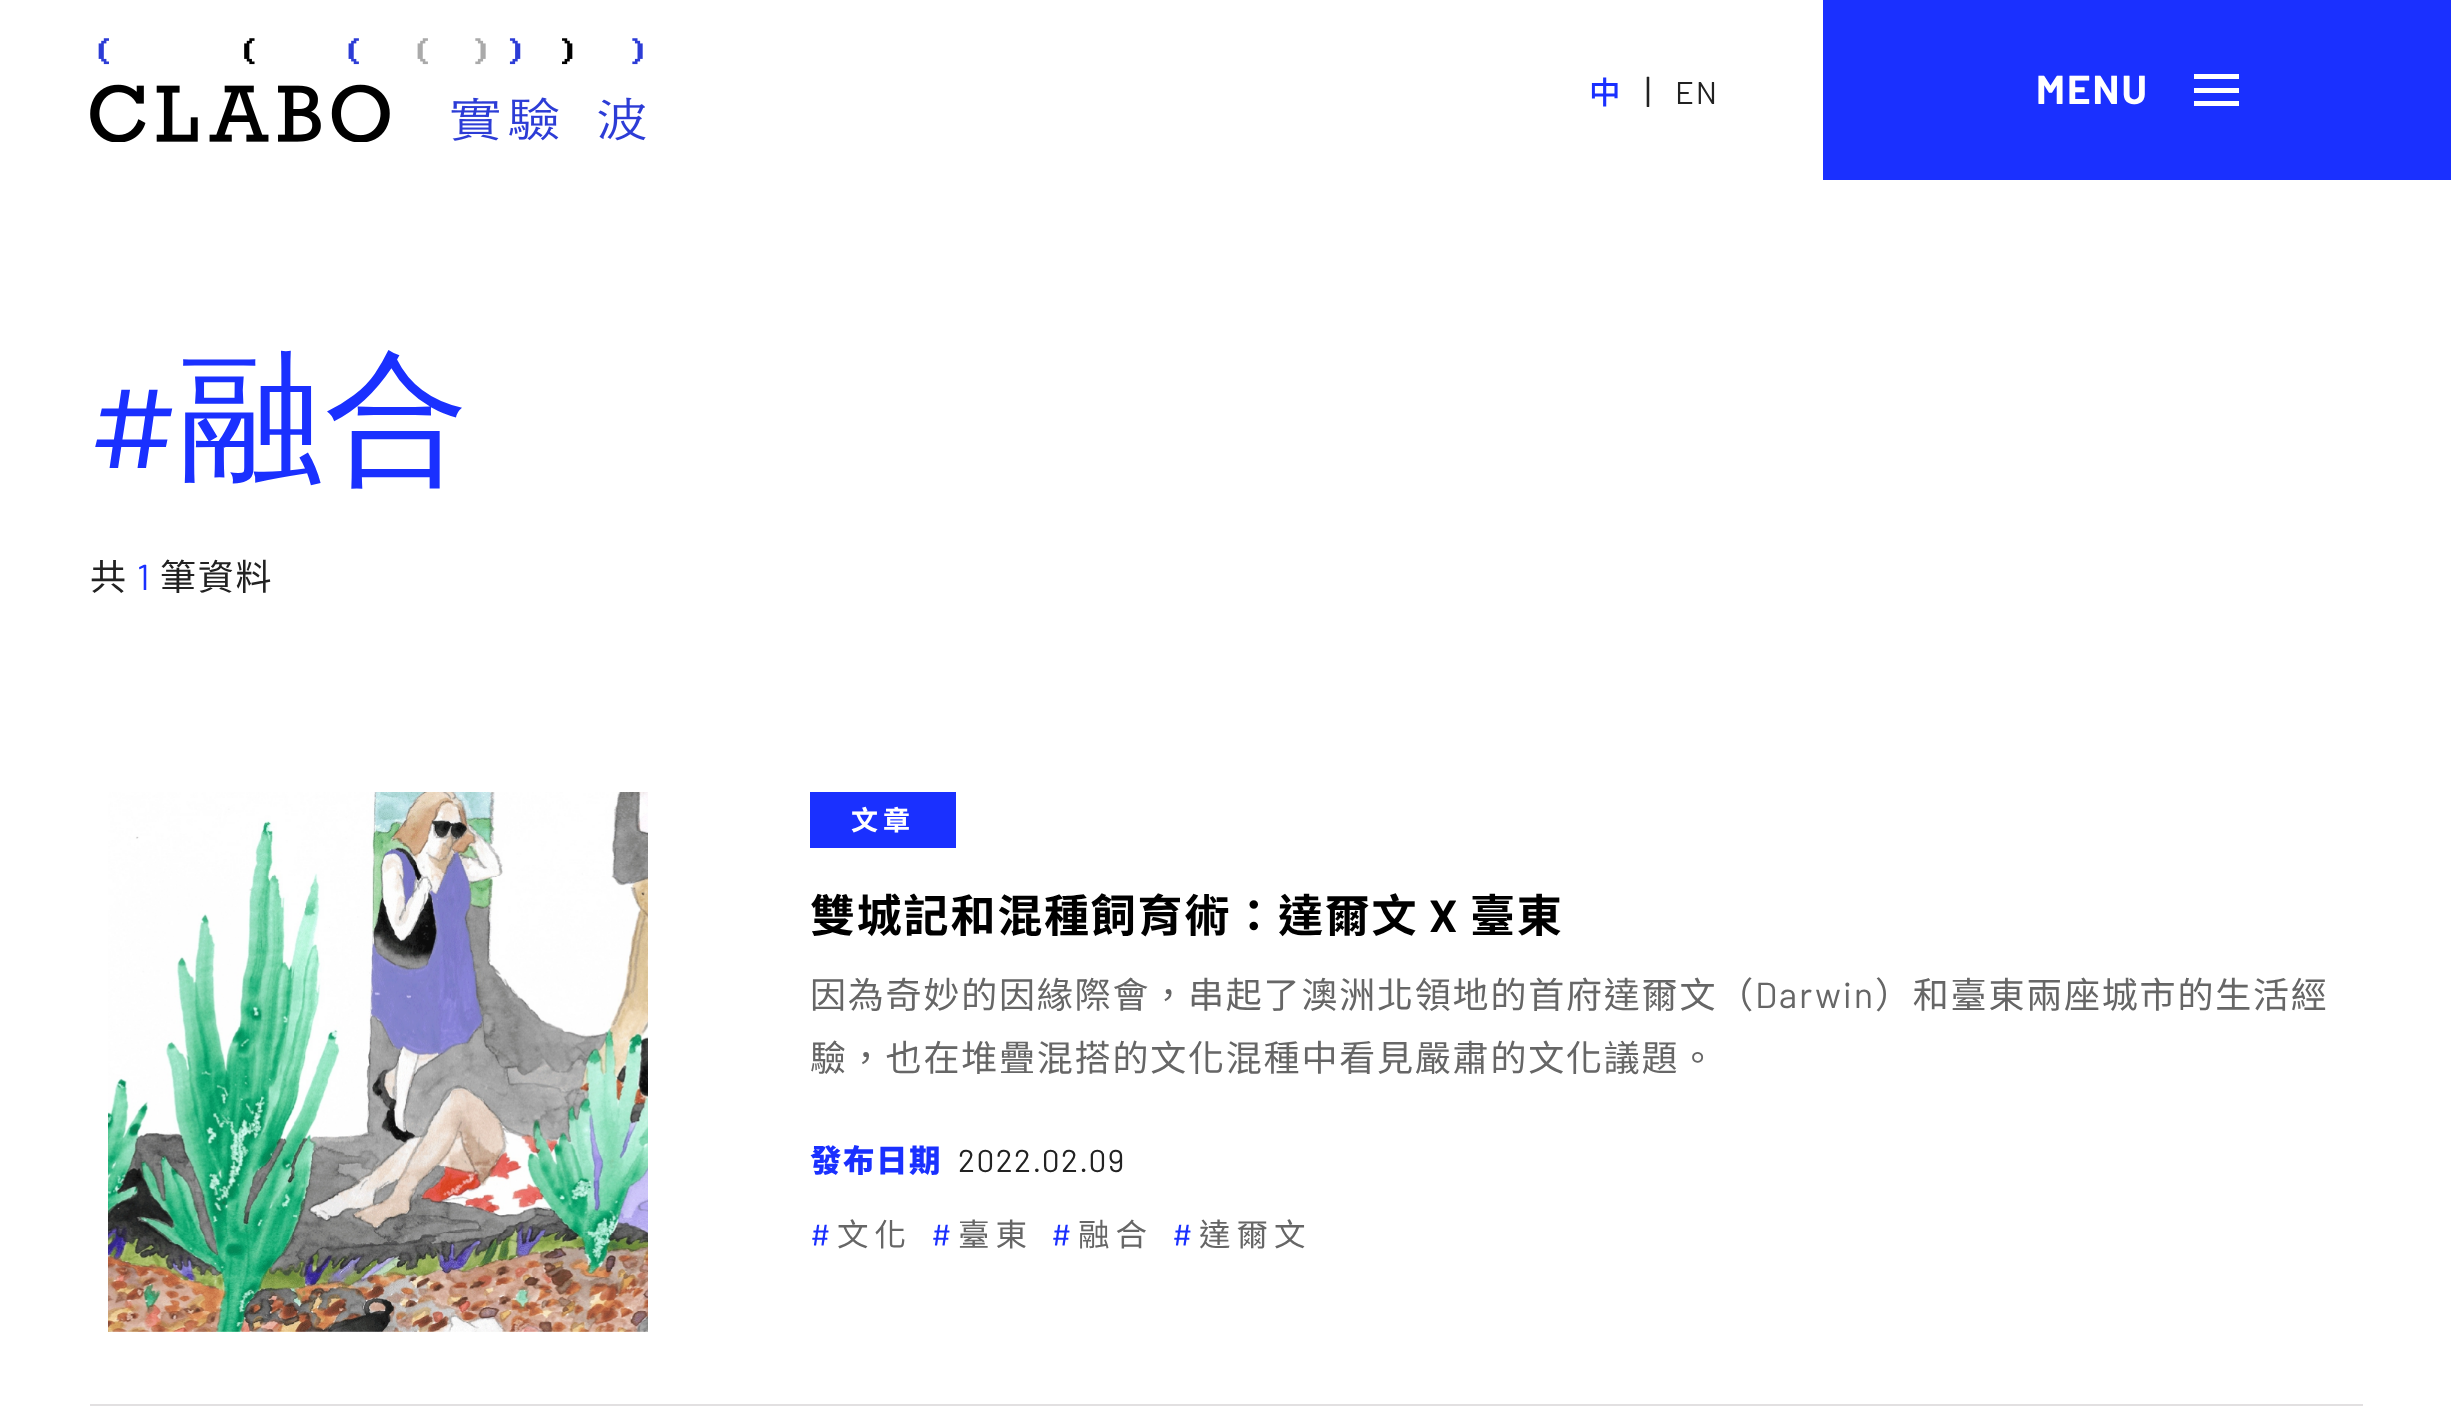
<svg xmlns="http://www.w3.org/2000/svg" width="2451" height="1426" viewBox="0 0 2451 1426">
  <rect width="100%" height="100%" fill="rgb(255,255,255)"/>
  <image x="90" y="38" width="556" height="104" href="pic1.png"/>
  <text x="1589" y="104" font-family="Noto Sans TC" font-size="31.5" font-weight="500" letter-spacing="1.8" fill="rgb(26,48,255)">中</text>
  <text x="1645" y="104" font-family="Barlow" font-size="36" letter-spacing="1.8" fill="rgb(34,34,34)">|</text>
  <text x="1675" y="104" font-family="Barlow" font-size="31.5" letter-spacing="1.8" fill="rgb(34,34,34)">EN</text>
  <rect x="1823" y="0" width="628" height="180" fill="rgb(26,48,255)"/>
  <text x="2036" y="104" font-family="Barlow" font-size="40.5" font-weight="bold" letter-spacing="2" fill="rgb(255,255,255)">MENU</text>
  <rect x="2194" y="88" width="45" height="5" fill="rgb(255,255,255)"/>
  <rect x="2194" y="74" width="45" height="5" fill="rgb(255,255,255)"/>
  <rect x="2194" y="101" width="45" height="5" fill="rgb(255,255,255)"/>
  <text x="90" y="468" font-family="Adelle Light" font-size="144" font-weight="300" letter-spacing="1.8" fill="rgb(26,48,255)">#</text>
  <text x="179" y="468" font-family="WenQuanYi Zen Hei" font-size="144" font-weight="500" letter-spacing="1.8" fill="rgb(26,48,255)">融合</text>
  <text x="90" y="590" font-family="Noto Sans TC" font-size="36" letter-spacing="1.8" fill="rgb(34,34,34)">共</text>
  <text x="137" y="590" font-family="Barlow" font-size="36" letter-spacing="1.8" fill="rgb(26,48,255)">1</text>
  <text x="160" y="590" font-family="Noto Sans TC" font-size="36" letter-spacing="1.8" fill="rgb(34,34,34)">筆資料</text>
  <rect x="90" y="1404" width="2273" height="2" fill="rgb(226,224,225)"/>
  <image x="108" y="792" width="540" height="540" href="pic2.png"/>
  <rect x="810" y="792" width="146" height="56" fill="rgb(26,48,255)"/>
  <text x="851" y="830" font-family="Noto Sans TC" font-size="27" font-weight="bold" letter-spacing="5" fill="rgb(255,255,255)">文章</text>
  <text x="810" y="932" font-family="Noto Sans TC" font-size="45" font-weight="bold" letter-spacing="1.8" fill="rgb(0,0,0)">雙城記和混種飼育術：達爾文</text>
  <text x="1429" y="932" font-family="Barlow" font-size="45" font-weight="bold" letter-spacing="1.8" fill="rgb(0,0,0)">X</text>
  <text x="1470" y="932" font-family="Noto Sans TC" font-size="45" font-weight="bold" letter-spacing="1.8" fill="rgb(0,0,0)">臺東</text>
  <text x="810" y="1008" font-family="Noto Sans TC" font-size="36" letter-spacing="1.8" fill="rgb(102,102,102)">因為奇妙的因緣際會，串起了澳洲北領地的首府達爾文（</text>
  <text x="1755" y="1008" font-family="Barlow" font-size="36" letter-spacing="1.8" fill="rgb(102,102,102)">Darwin</text>
  <g font-family="Noto Sans TC" font-size="36" letter-spacing="1.8" fill="rgb(102,102,102)">
    <text x="1875" y="1008">）和臺東兩座城市的生活經</text>
    <text x="810" y="1071">驗，也在堆疊混搭的文化混種中看見嚴肅的文化議題。</text>
  </g>
  <text x="810" y="1172" font-family="Noto Sans TC" font-size="31.5" font-weight="900" letter-spacing="1.5" fill="rgb(26,48,255)">發布日期</text>
  <text x="958" y="1172" font-family="Barlow" font-size="31.5" letter-spacing="1.5" fill="rgb(34,34,34)">2022.02.09</text>
  <text x="810" y="1246" font-family="Barlow" font-size="31.5" letter-spacing="6" fill="rgb(26,48,255)">#</text>
  <text x="837" y="1246" font-family="Noto Sans TC" font-size="31.5" letter-spacing="6" fill="rgb(102,102,102)">文化</text>
  <text x="931" y="1246" font-family="Barlow" font-size="31.5" letter-spacing="6" fill="rgb(26,48,255)">#</text>
  <text x="958" y="1246" font-family="Noto Sans TC" font-size="31.5" letter-spacing="6" fill="rgb(102,102,102)">臺東</text>
  <text x="1051" y="1246" font-family="Barlow" font-size="31.5" letter-spacing="6" fill="rgb(26,48,255)">#</text>
  <text x="1078" y="1246" font-family="Noto Sans TC" font-size="31.5" letter-spacing="6" fill="rgb(102,102,102)">融合</text>
  <text x="1172" y="1246" font-family="Barlow" font-size="31.5" letter-spacing="6" fill="rgb(26,48,255)">#</text>
  <text x="1199" y="1246" font-family="Noto Sans TC" font-size="31.5" letter-spacing="6" fill="rgb(102,102,102)">達爾文</text>
</svg>
